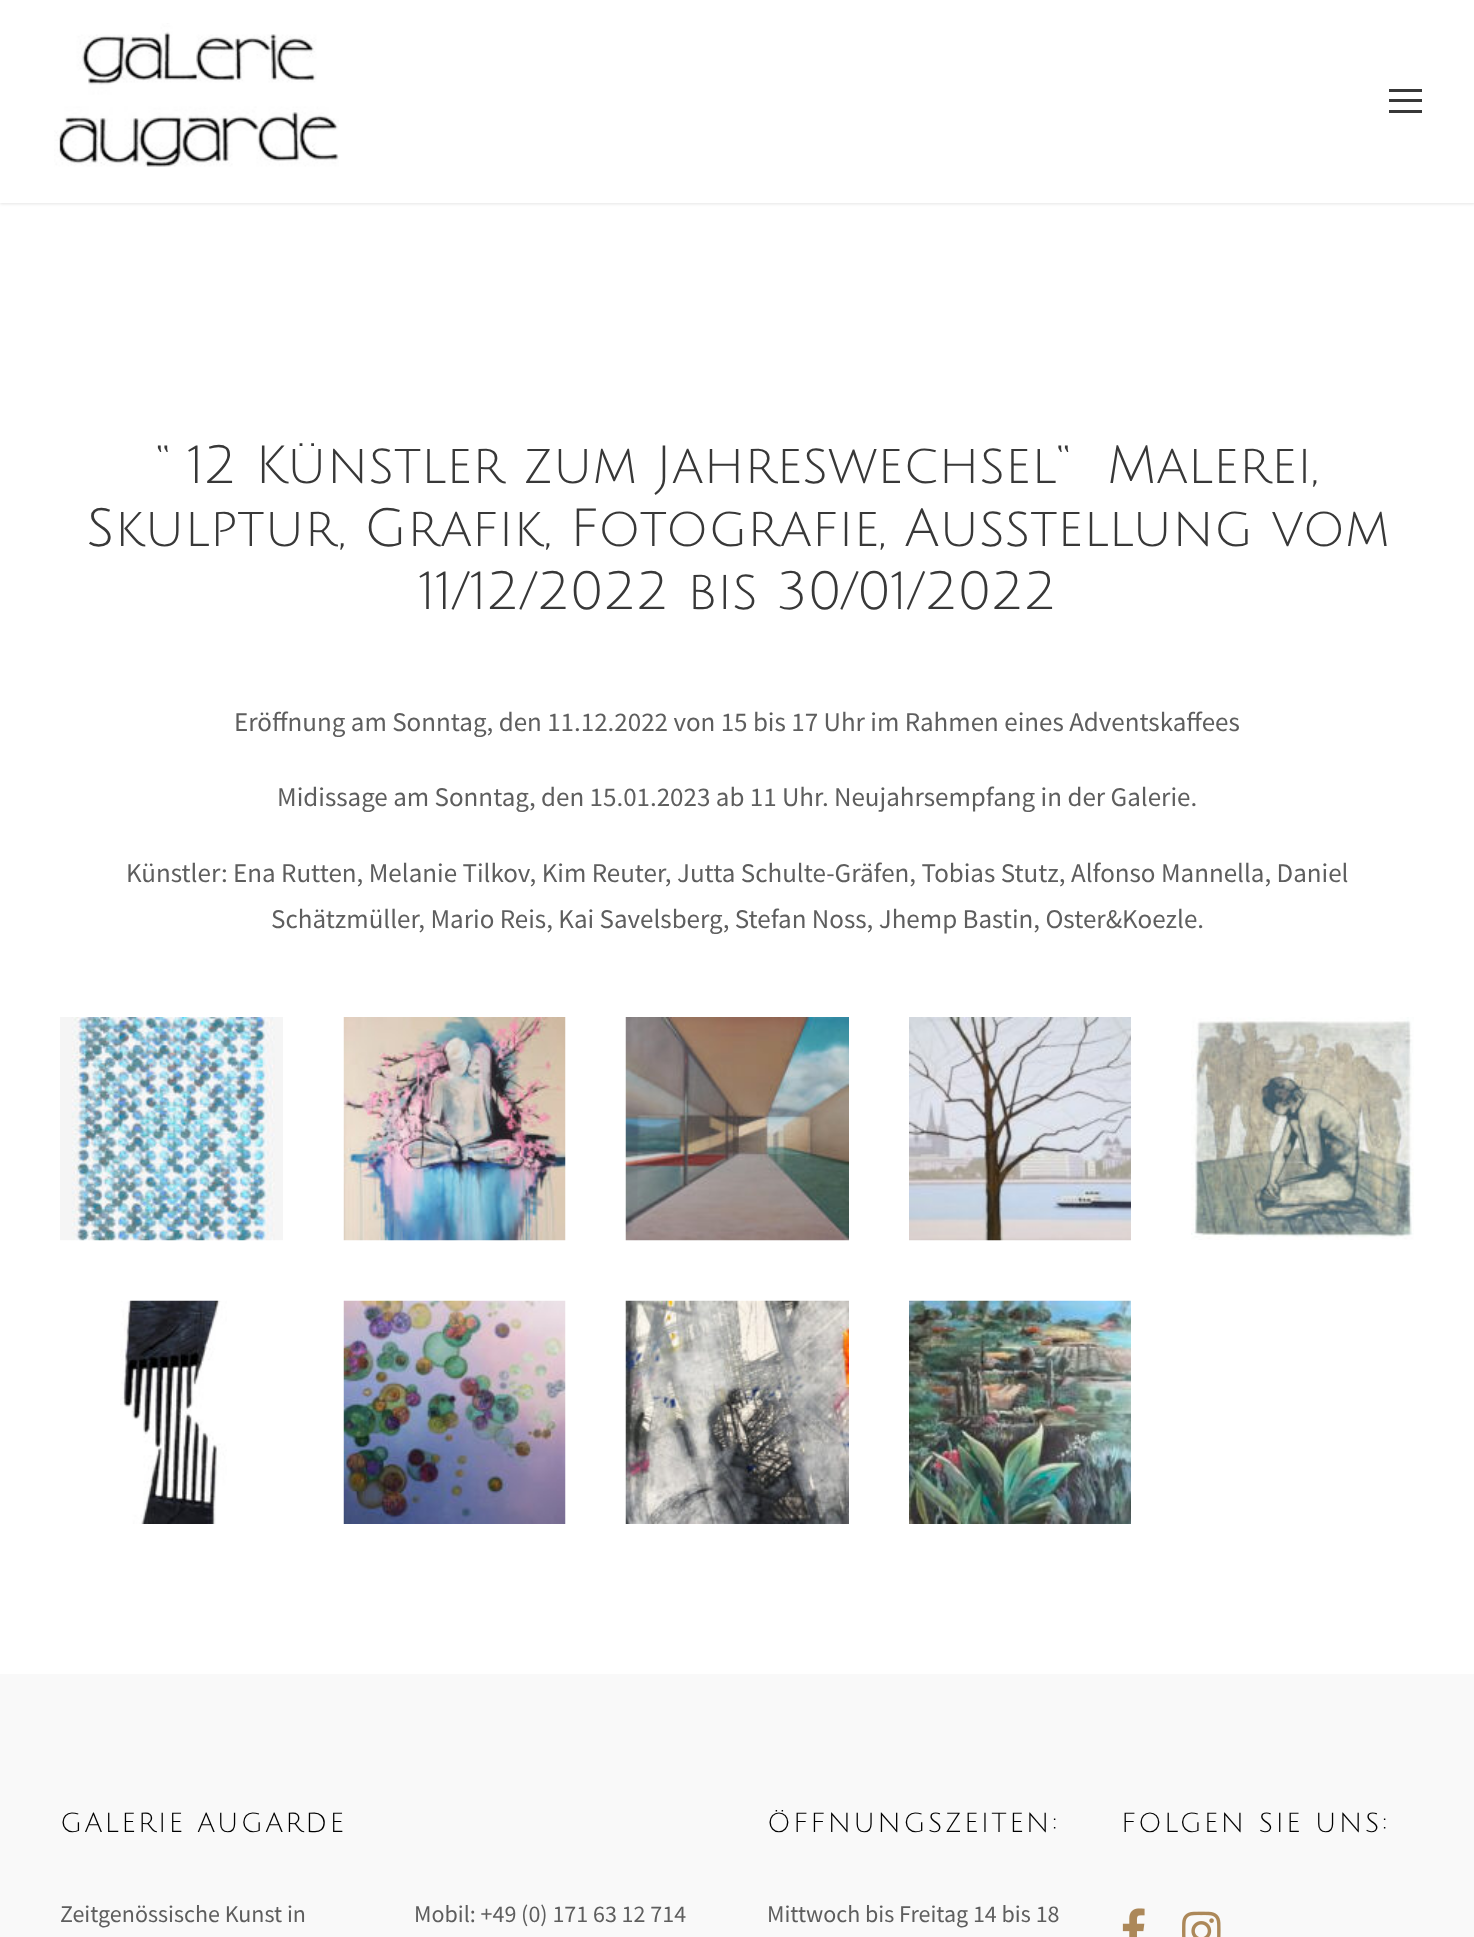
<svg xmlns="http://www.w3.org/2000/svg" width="1474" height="1937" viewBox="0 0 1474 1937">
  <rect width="100%" height="100%" fill="rgb(255,255,255)"/>
  <rect x="0" y="2" width="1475" height="202" fill="rgba(0,0,0,0.1)" filter="blur(1.5px)"/>
  <rect x="0" y="0" width="1474" height="203" fill="rgb(255,255,255)"/>
  <image x="54" y="23" width="285" height="144" href="pic1.png"/>
  <rect x="1389" y="89" width="33" height="3" fill="rgb(56,56,56)"/>
  <rect x="1389" y="99" width="33" height="3" fill="rgb(56,56,56)"/>
  <rect x="1389" y="110" width="33" height="3" fill="rgb(56,56,56)"/>
  <g font-family="Julius Sans One" font-size="52.5" fill="rgb(56,56,56)">
    <text x="156" y="483" xml:space="preserve">“ 12 Künstler zum Jahreswechsel“  Malerei,</text>
    <text x="86" y="546">Skulptur, Grafik, Fotografie, Ausstellung vom</text>
    <text x="419" y="609">11/12/2022 bis 30/01/2022</text>
  </g>
  <g font-family="Source Sans Pro" font-size="27" fill="rgb(94,94,94)">
    <text x="234" y="731">Eröffnung am Sonntag, den 11.12.2022 von 15 bis 17 Uhr im Rahmen eines Adventskaffees</text>
    <text x="277" y="806">Midissage am Sonntag, den 15.01.2023 ab 11 Uhr. Neujahrsempfang in der Galerie.</text>
    <text x="126" y="882">Künstler: Ena Rutten, Melanie Tilkov, Kim Reuter, Jutta Schulte-Gräfen, Tobias Stutz, Alfonso Mannella, Daniel</text>
    <text x="271" y="928">Schätzmüller, Mario Reis, Kai Savelsberg, Stefan Noss, Jhemp Bastin, Oster&amp;Koezle.</text>
  </g>
  <image x="60" y="1017" width="223" height="224" href="pic2.png"/>
  <image x="343" y="1017" width="223" height="224" href="pic3.png"/>
  <image x="625" y="1017" width="224" height="224" href="pic4.png"/>
  <image x="909" y="1017" width="222" height="224" href="pic5.png"/>
  <image x="1191" y="1017" width="223" height="223" href="pic6.png"/>
  <image x="120" y="1300" width="107" height="224" href="pic7.png"/>
  <image x="343" y="1300" width="223" height="224" href="pic8.png"/>
  <image x="625" y="1300" width="224" height="224" href="pic9.png"/>
  <image x="909" y="1300" width="222" height="224" href="pic10.png"/>
  <rect x="0" y="1674" width="1474" height="263" fill="rgb(249,249,249)"/>
  <text x="60" y="1832" font-family="Julius Sans One" font-size="27" letter-spacing="2.25" fill="rgb(0,0,0)">GALERIE AUGARDE</text>
  <text x="60" y="1922" font-family="Source Sans Pro" font-size="24" fill="rgb(94,94,94)">Zeitgenössische Kunst in</text>
  <text x="767" y="1832" font-family="Julius Sans One" font-size="27" letter-spacing="2.25" fill="rgb(0,0,0)">ÖFFNUNGSZEITEN:</text>
  <text x="767" y="1922" font-family="Source Sans Pro" font-size="24" fill="rgb(94,94,94)">Mittwoch bis Freitag 14 bis 18</text>
  <text x="1121" y="1832" font-family="Julius Sans One" font-size="27" letter-spacing="2.25" fill="rgb(0,0,0)">FOLGEN SIE UNS:</text>
  <image x="1122" y="1908" width="23" height="29" href="pic11.png"/>
  <image x="1182" y="1911" width="39" height="26" href="pic12.png"/>
  <text x="414" y="1922" font-family="Source Sans Pro" font-size="24" fill="rgb(94,94,94)">Mobil: +49 (0) 171 63 12 714</text>
</svg>
